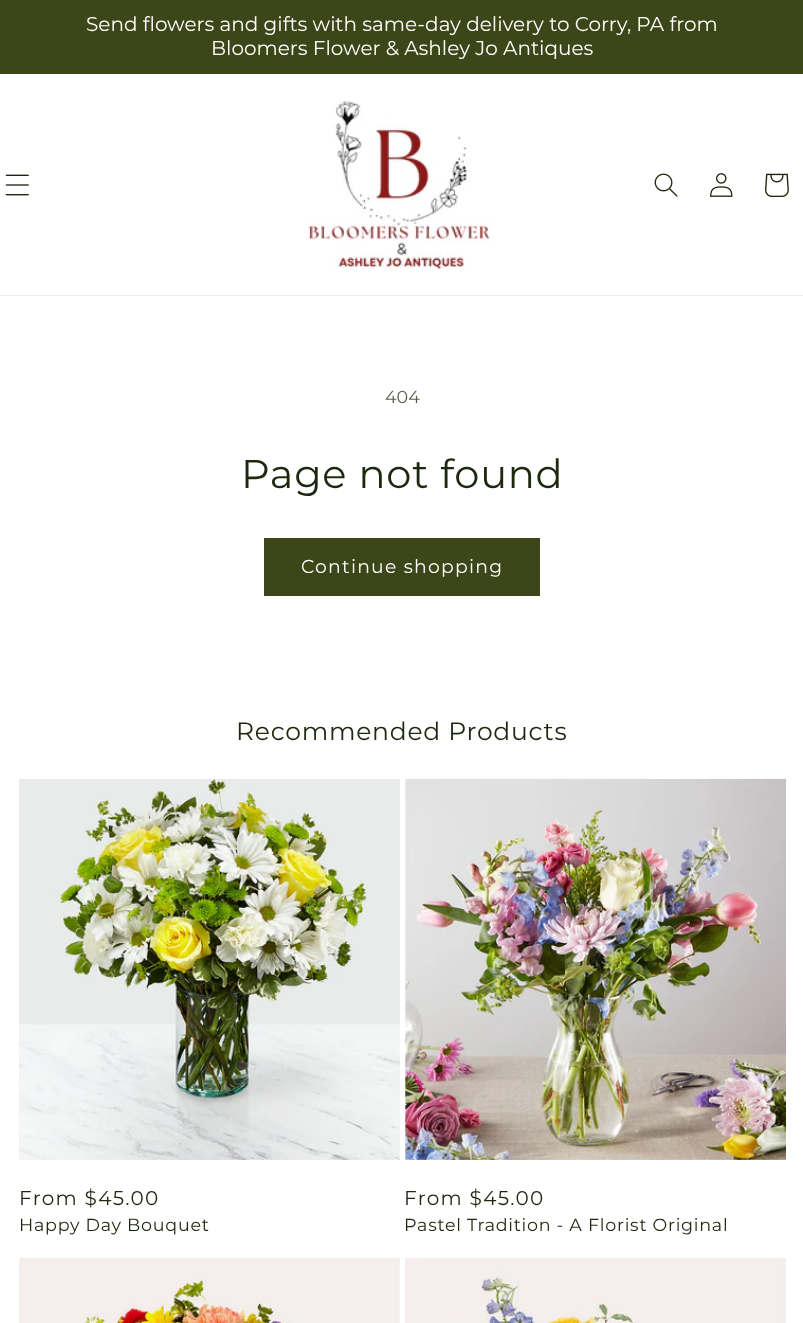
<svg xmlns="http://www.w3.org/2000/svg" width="803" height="1323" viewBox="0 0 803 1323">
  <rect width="100%" height="100%" fill="rgb(255,255,255)"/>
  <rect x="0" y="0" width="803" height="73" fill="rgb(60,70,24)"/>
  <rect x="0" y="73" width="803" height="1" fill="rgb(58,68,23)"/>
  <g font-family="Montserrat" font-size="20" fill="rgb(255,255,255)">
    <text x="86" y="31">Send flowers and gifts with same-day delivery to Corry, PA from</text>
    <text x="211" y="55">Bloomers Flower &amp; Ashley Jo Antiques</text>
  </g>
  <rect x="0" y="295" width="803" height="1" fill="rgb(237,238,236)"/>
  <image x="5" y="174" width="24" height="22" href="pic1.png"/>
  <image x="308" y="101" width="183" height="169" href="pic2.png"/>
  <image x="654" y="173" width="24" height="24" href="pic3.png"/>
  <image x="710" y="173" width="23" height="24" href="pic4.png"/>
  <image x="765" y="173" width="24" height="24" href="pic5.png"/>
  <text x="385" y="403" font-family="Montserrat" font-size="17.5" fill="rgb(86,94,75)">404</text>
  <text x="241" y="488" font-family="Montserrat" font-size="40" letter-spacing="0.75" fill="rgb(30,40,15)">Page not found</text>
  <rect x="264" y="538" width="276" height="58" fill="rgb(60,70,24)"/>
  <text x="301" y="573" font-family="Montserrat" font-size="18.75" letter-spacing="1.25" fill="rgb(255,255,255)">Continue shopping</text>
  <text x="236" y="740" font-family="Montserrat" font-size="25" letter-spacing="0.75" fill="rgb(30,40,15)">Recommended Products</text>
  <image x="19" y="779" width="381" height="381" href="pic6.png"/>
  <text x="19" y="1205" font-family="Montserrat" font-size="20" letter-spacing="1.25" fill="rgb(30,40,15)">From $45.00</text>
  <text x="19" y="1231" font-family="Montserrat" font-size="17.5" letter-spacing="0.75" fill="rgb(30,40,15)">Happy Day Bouquet</text>
  <image x="405" y="778" width="381" height="382" href="pic7.png"/>
  <text x="404" y="1205" font-family="Montserrat" font-size="20" letter-spacing="1.25" fill="rgb(30,40,15)">From $45.00</text>
  <text x="404" y="1231" font-family="Montserrat" font-size="17.5" letter-spacing="0.75" fill="rgb(30,40,15)">Pastel Tradition - A Florist Original</text>
  <image x="19" y="1257" width="381" height="66" href="pic8.png"/>
  <image x="405" y="1257" width="381" height="66" href="pic9.png"/>
</svg>
